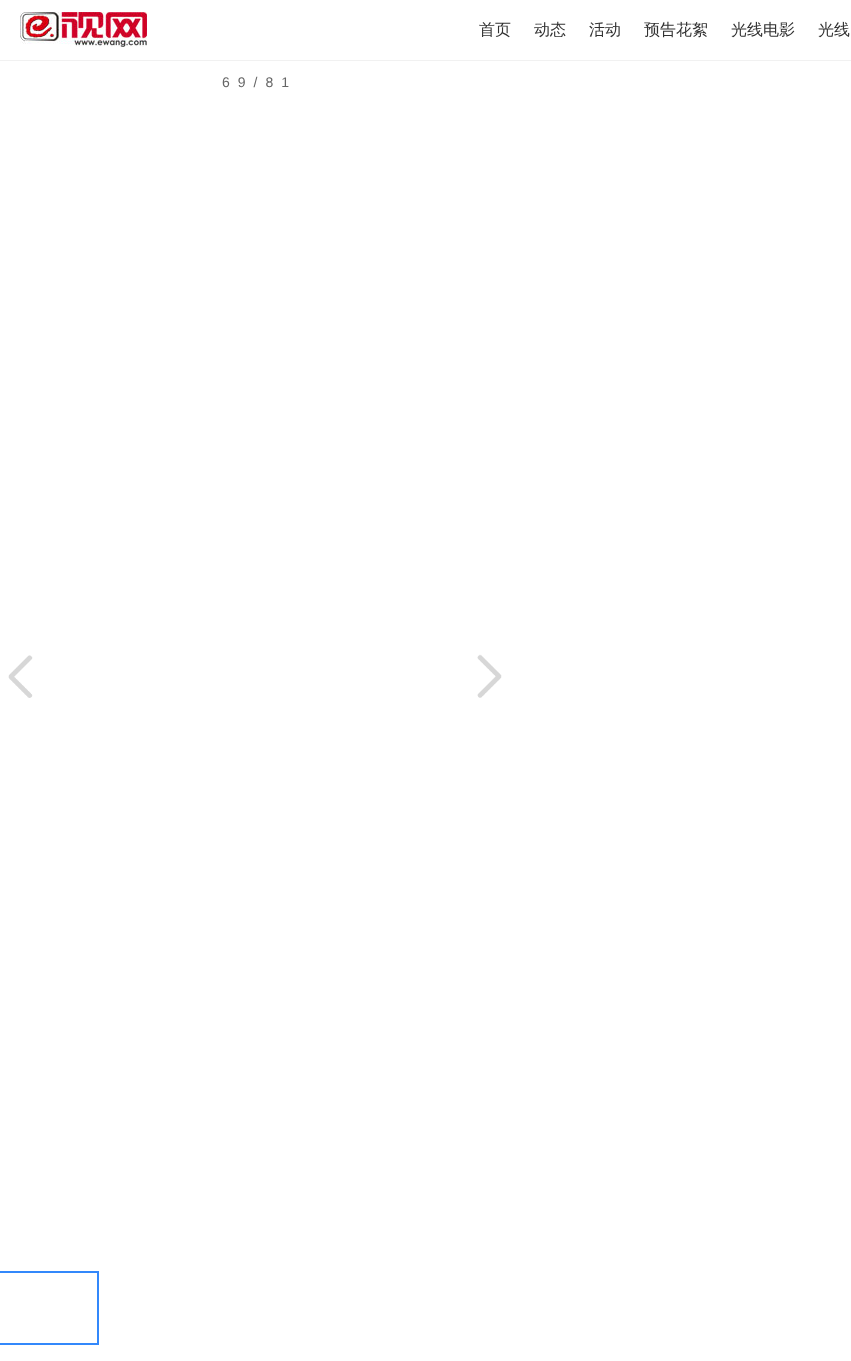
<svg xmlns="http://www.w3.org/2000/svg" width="851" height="1361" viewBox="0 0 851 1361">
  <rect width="100%" height="100%" fill="rgb(255,255,255)"/>
  <rect x="0" y="60" width="851" height="1" fill="rgb(241,241,241)"/>
  <image x="20" y="12" width="127" height="35" href="pic1.png"/>
  <g font-family="WenQuanYi Zen Hei" font-size="16" font-weight="500" fill="rgb(50,50,50)">
    <text x="479" y="35">首页</text>
    <text x="534" y="35">动态</text>
    <text x="589" y="35">活动</text>
    <text x="644" y="35">预告花絮</text>
    <text x="731" y="35">光线电影</text>
    <text x="818" y="35">光线</text>
  </g>
  <text x="222" y="87" font-family="Liberation Sans" font-size="14" letter-spacing="8" fill="rgb(102,102,102)">69/81</text>
  <image x="8" y="655" width="25" height="43" href="pic2.png"/>
  <image x="477" y="654" width="25" height="44" href="pic3.png"/>
  <rect x="-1" y="1272" width="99" height="72" fill="none" stroke="rgb(51,136,251)" stroke-width="2"/>
</svg>
